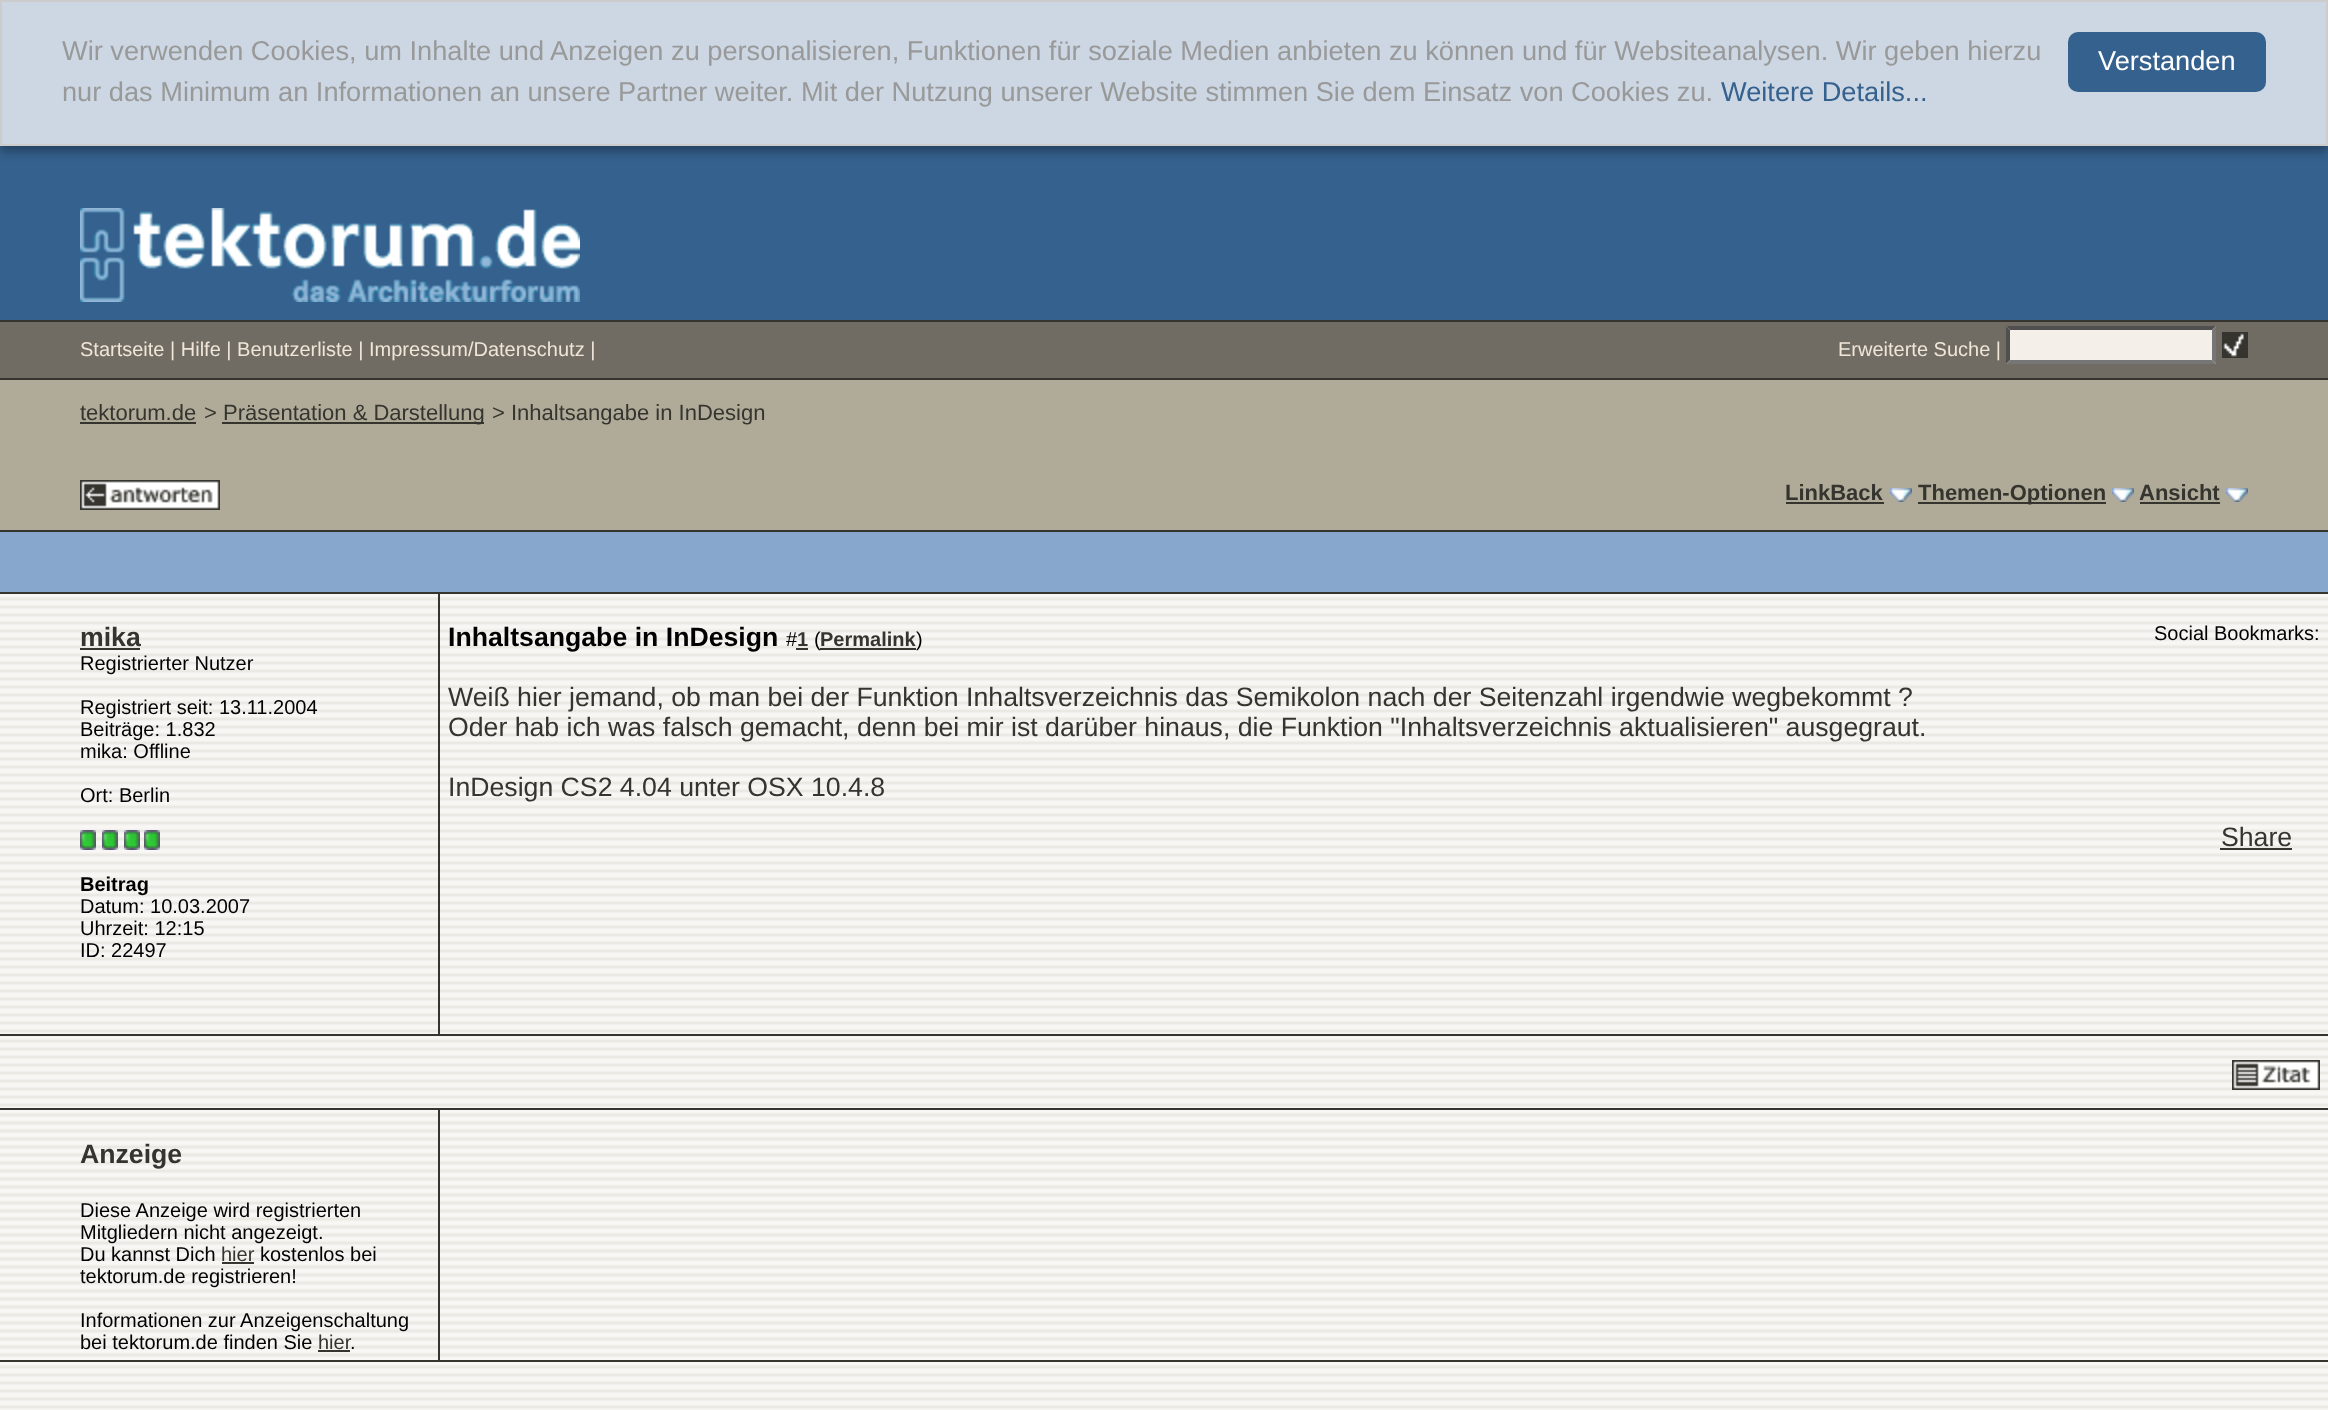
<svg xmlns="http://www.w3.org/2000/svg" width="2328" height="1410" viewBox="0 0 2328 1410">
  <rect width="100%" height="100%" fill="rgb(53,97,142)"/>
  <rect x="0" y="6" width="2328" height="146" fill="rgba(0,0,0,0.3)" filter="blur(5px)"/>
  <rect x="1" y="1" width="2326" height="144" fill="rgb(204,215,227)" stroke="rgb(204,204,204)" stroke-width="2"/>
  <g font-family="Liberation Sans" font-size="27.2" fill="rgb(153,153,153)">
    <text>
      <tspan x="62" y="60">Wir verwenden Cookies, um Inhalte und Anzeigen zu personalisieren, Funktionen für soziale Medien anbieten zu können und für Websiteanalysen. Wir geben hierzu</tspan>
      <tspan x="62" y="101">nur das Minimum an Informationen an unsere Partner weiter. Mit der Nutzung unserer Website stimmen Sie dem Einsatz von Cookies zu.</tspan>
    </text>
  </g>
  <text x="1721" y="101" font-family="Liberation Sans" font-size="27.2" fill="rgb(53,97,142)">Weitere Details...</text>
  <rect x="2068" y="32" width="198" height="60" rx="10" fill="rgb(53,97,142)"/>
  <text x="2098" y="70" font-family="Liberation Sans" font-size="27.2" fill="rgb(255,255,255)">Verstanden</text>
  <image x="80" y="208" width="500" height="94" href="pic1.png"/>
  <rect x="0" y="322" width="2328" height="56" fill="rgb(112,107,99)"/>
  <rect x="0" y="320" width="2328" height="2" fill="rgb(53,52,47)"/>
  <rect x="0" y="378" width="2328" height="2" fill="rgb(53,52,47)"/>
  <g font-family="Liberation Sans" font-size="20" fill="rgb(239,230,216)">
    <text x="80" y="356">Startseite | Hilfe | Benutzerliste | Impressum/Datenschutz |</text>
    <text x="1838" y="356">Erweiterte Suche |</text>
  </g>
  <rect x="2006" y="326" width="210" height="38" fill="rgb(244,240,233)"/>
  <path d="M2006 326H2216L2212 330H2010Z" fill="rgb(79,79,79)"/>
  <path d="M2216 326V364L2212 360V330Z" fill="rgb(118,118,118)"/>
  <path d="M2216 364H2006L2010 360H2212Z" fill="rgb(118,118,118)"/>
  <path d="M2006 364V326L2010 330V360Z" fill="rgb(79,79,79)"/>
  <image x="2222" y="332" width="26" height="26" href="pic2.png"/>
  <rect x="0" y="380" width="2328" height="150" fill="rgb(175,171,152)"/>
  <rect x="0" y="530" width="2328" height="2" fill="rgb(53,52,47)"/>
  <text x="80" y="420" font-family="Liberation Sans" font-size="22" fill="rgb(53,52,47)">tektorum.de</text>
  <rect x="80" y="422" width="116" height="2" fill="rgb(53,52,47)"/>
  <text x="204" y="420" font-family="Liberation Sans" font-size="22" fill="rgb(53,52,47)">&gt;</text>
  <rect x="222" y="422" width="262" height="2" fill="rgb(53,52,47)"/>
  <g font-family="Liberation Sans" font-size="22" fill="rgb(53,52,47)">
    <text x="223" y="420">Präsentation &amp; Darstellung</text>
    <text x="492" y="420">&gt; Inhaltsangabe in InDesign</text>
  </g>
  <image x="80" y="480" width="140" height="30" href="pic3.png"/>
  <text x="1785" y="500" font-family="Liberation Sans" font-size="22" font-weight="bold" fill="rgb(53,52,47)">LinkBack</text>
  <rect x="1786" y="502" width="98" height="2" fill="rgb(53,52,47)"/>
  <image x="1890" y="488" width="22" height="14" href="pic4.png"/>
  <rect x="1918" y="502" width="188" height="2" fill="rgb(53,52,47)"/>
  <text x="1918" y="500" font-family="Liberation Sans" font-size="22" font-weight="bold" fill="rgb(53,52,47)">Themen-Optionen</text>
  <image x="2112" y="488" width="22" height="14" href="pic4.png"/>
  <text x="2139" y="500" font-family="Liberation Sans" font-size="22" font-weight="bold" fill="rgb(53,52,47)">Ansicht</text>
  <rect x="2140" y="502" width="80" height="2" fill="rgb(53,52,47)"/>
  <image x="2226" y="488" width="22" height="14" href="pic4.png"/>
  <rect x="0" y="532" width="2328" height="60" fill="rgb(135,168,204)"/>
  <rect x="0" y="592" width="2328" height="2" fill="rgb(53,52,47)"/>
  <image x="0" y="594" width="2328" height="443" href="pic5.png"/>
  <rect x="438" y="594" width="2" height="442" fill="rgb(53,52,47)"/>
  <rect x="0" y="1034" width="2328" height="2" fill="rgb(53,52,47)"/>
  <text x="80" y="646" font-family="Liberation Sans" font-size="26.67" font-weight="bold" fill="rgb(53,52,47)">mika</text>
  <rect x="80" y="648" width="60" height="2" fill="rgb(53,52,47)"/>
  <g font-family="Liberation Sans" font-size="20" fill="rgb(0,0,0)">
    <text x="80" y="670">Registrierter Nutzer</text>
    <text>
      <tspan x="80" y="714">Registriert seit: 13.11.2004</tspan>
      <tspan x="80" y="736">Beiträge: 1.832</tspan>
      <tspan x="80" y="758">mika: Offline</tspan>
    </text>
    <text x="80" y="802">Ort: Berlin</text>
  </g>
  <image x="80" y="830" width="16" height="20" href="pic6.png"/>
  <image x="102" y="830" width="16" height="20" href="pic6.png"/>
  <image x="124" y="830" width="16" height="20" href="pic6.png"/>
  <image x="144" y="830" width="16" height="20" href="pic6.png"/>
  <text x="80" y="891" font-family="Liberation Sans" font-size="20" font-weight="bold" fill="rgb(0,0,0)">Beitrag</text>
  <g font-family="Liberation Sans" font-size="20" fill="rgb(0,0,0)">
    <text>
      <tspan x="80" y="913">Datum: 10.03.2007</tspan>
      <tspan x="80" y="935">Uhrzeit: 12:15</tspan>
      <tspan x="80" y="957">ID: 22497</tspan>
    </text>
  </g>
  <text x="448" y="646" font-family="Liberation Sans" font-size="26.67" font-weight="bold" fill="rgb(0,0,0)">Inhaltsangabe in InDesign</text>
  <text x="786" y="646" font-family="Liberation Sans" font-size="20" fill="rgb(0,0,0)">#</text>
  <text x="797" y="646" font-family="Liberation Sans" font-size="20" font-weight="bold" fill="rgb(53,52,47)">1</text>
  <rect x="796" y="648" width="12" height="2" fill="rgb(53,52,47)"/>
  <text x="814" y="646" font-family="Liberation Sans" font-size="20" fill="rgb(0,0,0)">(</text>
  <text x="820" y="646" font-family="Liberation Sans" font-size="20" font-weight="bold" fill="rgb(53,52,47)">Permalink</text>
  <rect x="820" y="648" width="96" height="2" fill="rgb(53,52,47)"/>
  <g font-family="Liberation Sans" font-size="20" fill="rgb(0,0,0)">
    <text x="916" y="646">)</text>
    <text x="2154" y="640">Social Bookmarks:</text>
  </g>
  <g font-family="Liberation Sans" font-size="26.67" fill="rgb(53,52,47)">
    <text>
      <tspan x="448" y="706">Weiß hier jemand, ob man bei der Funktion Inhaltsverzeichnis das Semikolon nach der Seitenzahl irgendwie wegbekommt ?</tspan>
      <tspan x="448" y="736">Oder hab ich was falsch gemacht, denn bei mir ist darüber hinaus, die Funktion "Inhaltsverzeichnis aktualisieren" ausgegraut.</tspan>
    </text>
    <text x="448" y="796">InDesign CS2 4.04 unter OSX 10.4.8</text>
    <text x="2221" y="846">Share</text>
  </g>
  <rect x="2220" y="848" width="72" height="2" fill="rgb(53,52,47)"/>
  <image x="0" y="1037" width="2328" height="71" href="pic7.png"/>
  <rect x="0" y="1108" width="2328" height="2" fill="rgb(53,52,47)"/>
  <image x="2232" y="1060" width="88" height="30" href="pic8.png"/>
  <image x="0" y="1110" width="2328" height="250" href="pic9.png"/>
  <rect x="438" y="1110" width="2" height="252" fill="rgb(53,52,47)"/>
  <rect x="0" y="1360" width="2328" height="2" fill="rgb(53,52,47)"/>
  <text x="80" y="1163" font-family="Liberation Sans" font-size="26.67" font-weight="bold" fill="rgb(53,52,47)">Anzeige</text>
  <g font-family="Liberation Sans" font-size="20" fill="rgb(0,0,0)">
    <text>
      <tspan x="80" y="1217">Diese Anzeige wird registrierten</tspan>
      <tspan x="80" y="1239">Mitgliedern nicht angezeigt.</tspan>
      <tspan x="80" y="1261">Du kannst Dich</tspan>
    </text>
  </g>
  <text x="221" y="1261" font-family="Liberation Sans" font-size="20" fill="rgb(53,52,47)">hier</text>
  <rect x="222" y="1262" width="32" height="2" fill="rgb(53,52,47)"/>
  <g font-family="Liberation Sans" font-size="20" fill="rgb(0,0,0)">
    <text x="260" y="1261">kostenlos bei</text>
    <text x="80" y="1283">tektorum.de registrieren!</text>
    <text>
      <tspan x="80" y="1327">Informationen zur Anzeigenschaltung</tspan>
      <tspan x="80" y="1349">bei tektorum.de finden Sie</tspan>
    </text>
  </g>
  <text x="318" y="1349" font-family="Liberation Sans" font-size="20" fill="rgb(53,52,47)">hier</text>
  <rect x="318" y="1350" width="32" height="2" fill="rgb(53,52,47)"/>
  <text x="350" y="1349" font-family="Liberation Sans" font-size="20" fill="rgb(0,0,0)">.</text>
  <image x="0" y="1362" width="2328" height="48" href="pic10.png"/>
</svg>
